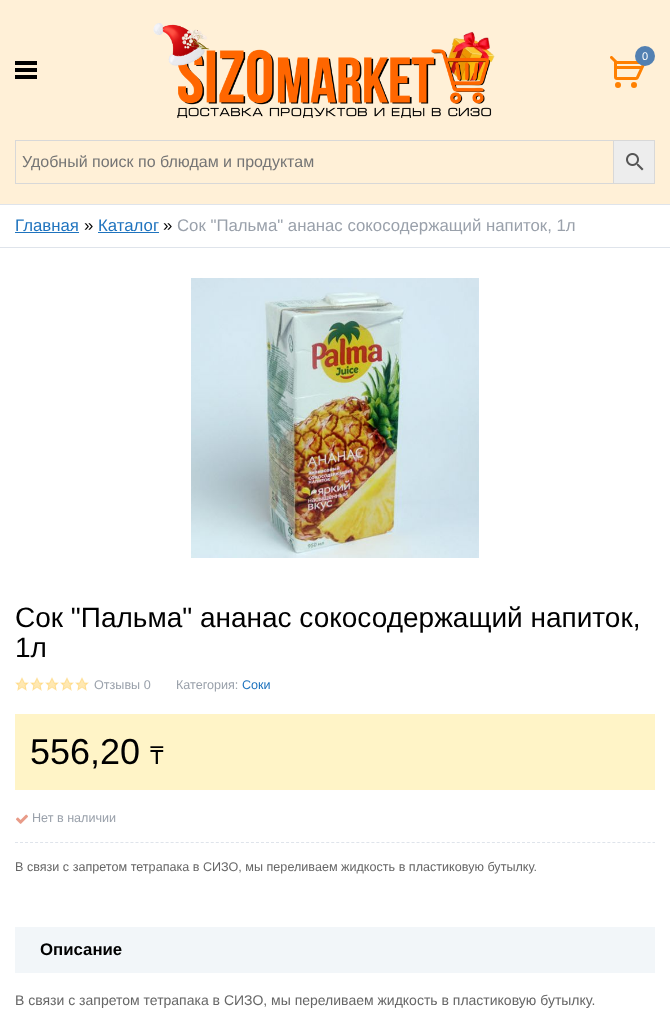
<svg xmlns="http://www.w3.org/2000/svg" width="670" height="1020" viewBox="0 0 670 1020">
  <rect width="100%" height="100%" fill="rgb(255,255,255)"/>
  <rect x="0" y="0" width="670" height="204" fill="rgb(255,240,215)"/>
  <rect x="0" y="204" width="670" height="1" fill="rgb(223,228,235)"/>
  <image x="153" y="23" width="342" height="95" href="pic1.png"/>
  <image x="610" y="56" width="35" height="32" href="pic2.png"/>
  <circle cx="645" cy="56" r="10" fill="rgb(82,128,178)"/>
  <text x="642" y="60" font-family="Liberation Sans" font-size="11" fill="rgb(255,255,255)">0</text>
  <image x="15" y="61" width="22" height="18" href="pic3.png"/>
  <rect x="613.5" y="140.5" width="41" height="43" fill="rgb(237,237,237)" stroke="rgb(216,216,216)"/>
  <rect x="15.5" y="140.5" width="598" height="43" fill="none" stroke="rgb(216,216,216)"/>
  <text x="22" y="167" font-family="Liberation Sans" font-size="16" fill="rgb(117,117,117)">Удобный поиск по блюдам и продуктам</text>
  <image x="626" y="153" width="18" height="18" href="pic4.png"/>
  <rect x="0" y="247" width="670" height="1" fill="rgb(223,228,235)"/>
  <text x="15" y="231" font-family="Liberation Sans" font-size="16.8" fill="rgb(30,115,190)">Главная</text>
  <rect x="15" y="232" width="64" height="1" fill="rgb(30,115,190)"/>
  <text x="84" y="231" font-family="Liberation Sans" font-size="16.8" fill="rgb(0,0,0)">»</text>
  <text x="98" y="231" font-family="Liberation Sans" font-size="16.8" fill="rgb(30,115,190)">Каталог</text>
  <rect x="98" y="232" width="61" height="1" fill="rgb(30,115,190)"/>
  <text x="163" y="231" font-family="Liberation Sans" font-size="16.8" fill="rgb(0,0,0)">»</text>
  <text x="177" y="231" font-family="Liberation Sans" font-size="16.8" fill="rgb(154,161,171)">Сок ʺПальмаʺ ананас сокосодержащий напиток, 1л</text>
  <image x="191" y="278" width="288" height="280" href="pic5.png"/>
  <g font-family="Liberation Sans" font-size="28" fill="rgb(0,0,0)">
    <text>
      <tspan x="15" y="627">Сок ʺПальмаʺ ананас сокосодержащий напиток,</tspan>
      <tspan x="15" y="657">1л</tspan>
    </text>
  </g>
  <image x="15" y="677" width="14" height="14" href="pic6.png"/>
  <image x="30" y="677" width="14" height="14" href="pic6.png"/>
  <image x="45" y="677" width="14" height="14" href="pic6.png"/>
  <image x="60" y="677" width="14" height="14" href="pic6.png"/>
  <image x="75" y="677" width="14" height="14" href="pic6.png"/>
  <g font-family="Liberation Sans" font-size="12.6" fill="rgb(154,161,171)">
    <text x="94" y="689">Отзывы 0</text>
    <text x="176" y="689">Категория:</text>
  </g>
  <text x="242" y="689" font-family="Liberation Sans" font-size="12.6" fill="rgb(30,115,190)">Соки</text>
  <rect x="15" y="714" width="640" height="76" fill="rgb(255,244,199)"/>
  <text x="30" y="764" font-family="Liberation Sans" font-size="36" fill="rgb(0,0,0)">556,20</text>
  <text x="150" y="764" font-family="Noto Sans" font-size="25" fill="rgb(0,0,0)">₸</text>
  <image x="16" y="814" width="12" height="10" href="pic7.png"/>
  <text x="32" y="822" font-family="Liberation Sans" font-size="12.6" fill="rgb(154,161,171)">Нет в наличии</text>
  <path d="M15 842.5H655" fill="none" stroke="rgb(223,228,235)" stroke-dasharray="3 2.02"/>
  <text x="15" y="871" font-family="Liberation Sans" font-size="12.6" fill="rgb(102,102,102)">В связи с запретом тетрапака в СИЗО, мы переливаем жидкость в пластиковую бутылку.</text>
  <rect x="15" y="927" width="640" height="46" fill="rgb(242,246,249)"/>
  <text x="40" y="955" font-family="Liberation Sans" font-size="16.8" font-weight="bold" fill="rgb(0,0,0)">Описание</text>
  <text x="15" y="1005" font-family="Liberation Sans" font-size="14" fill="rgb(102,102,102)">В связи с запретом тетрапака в СИЗО, мы переливаем жидкость в пластиковую бутылку.</text>
</svg>
